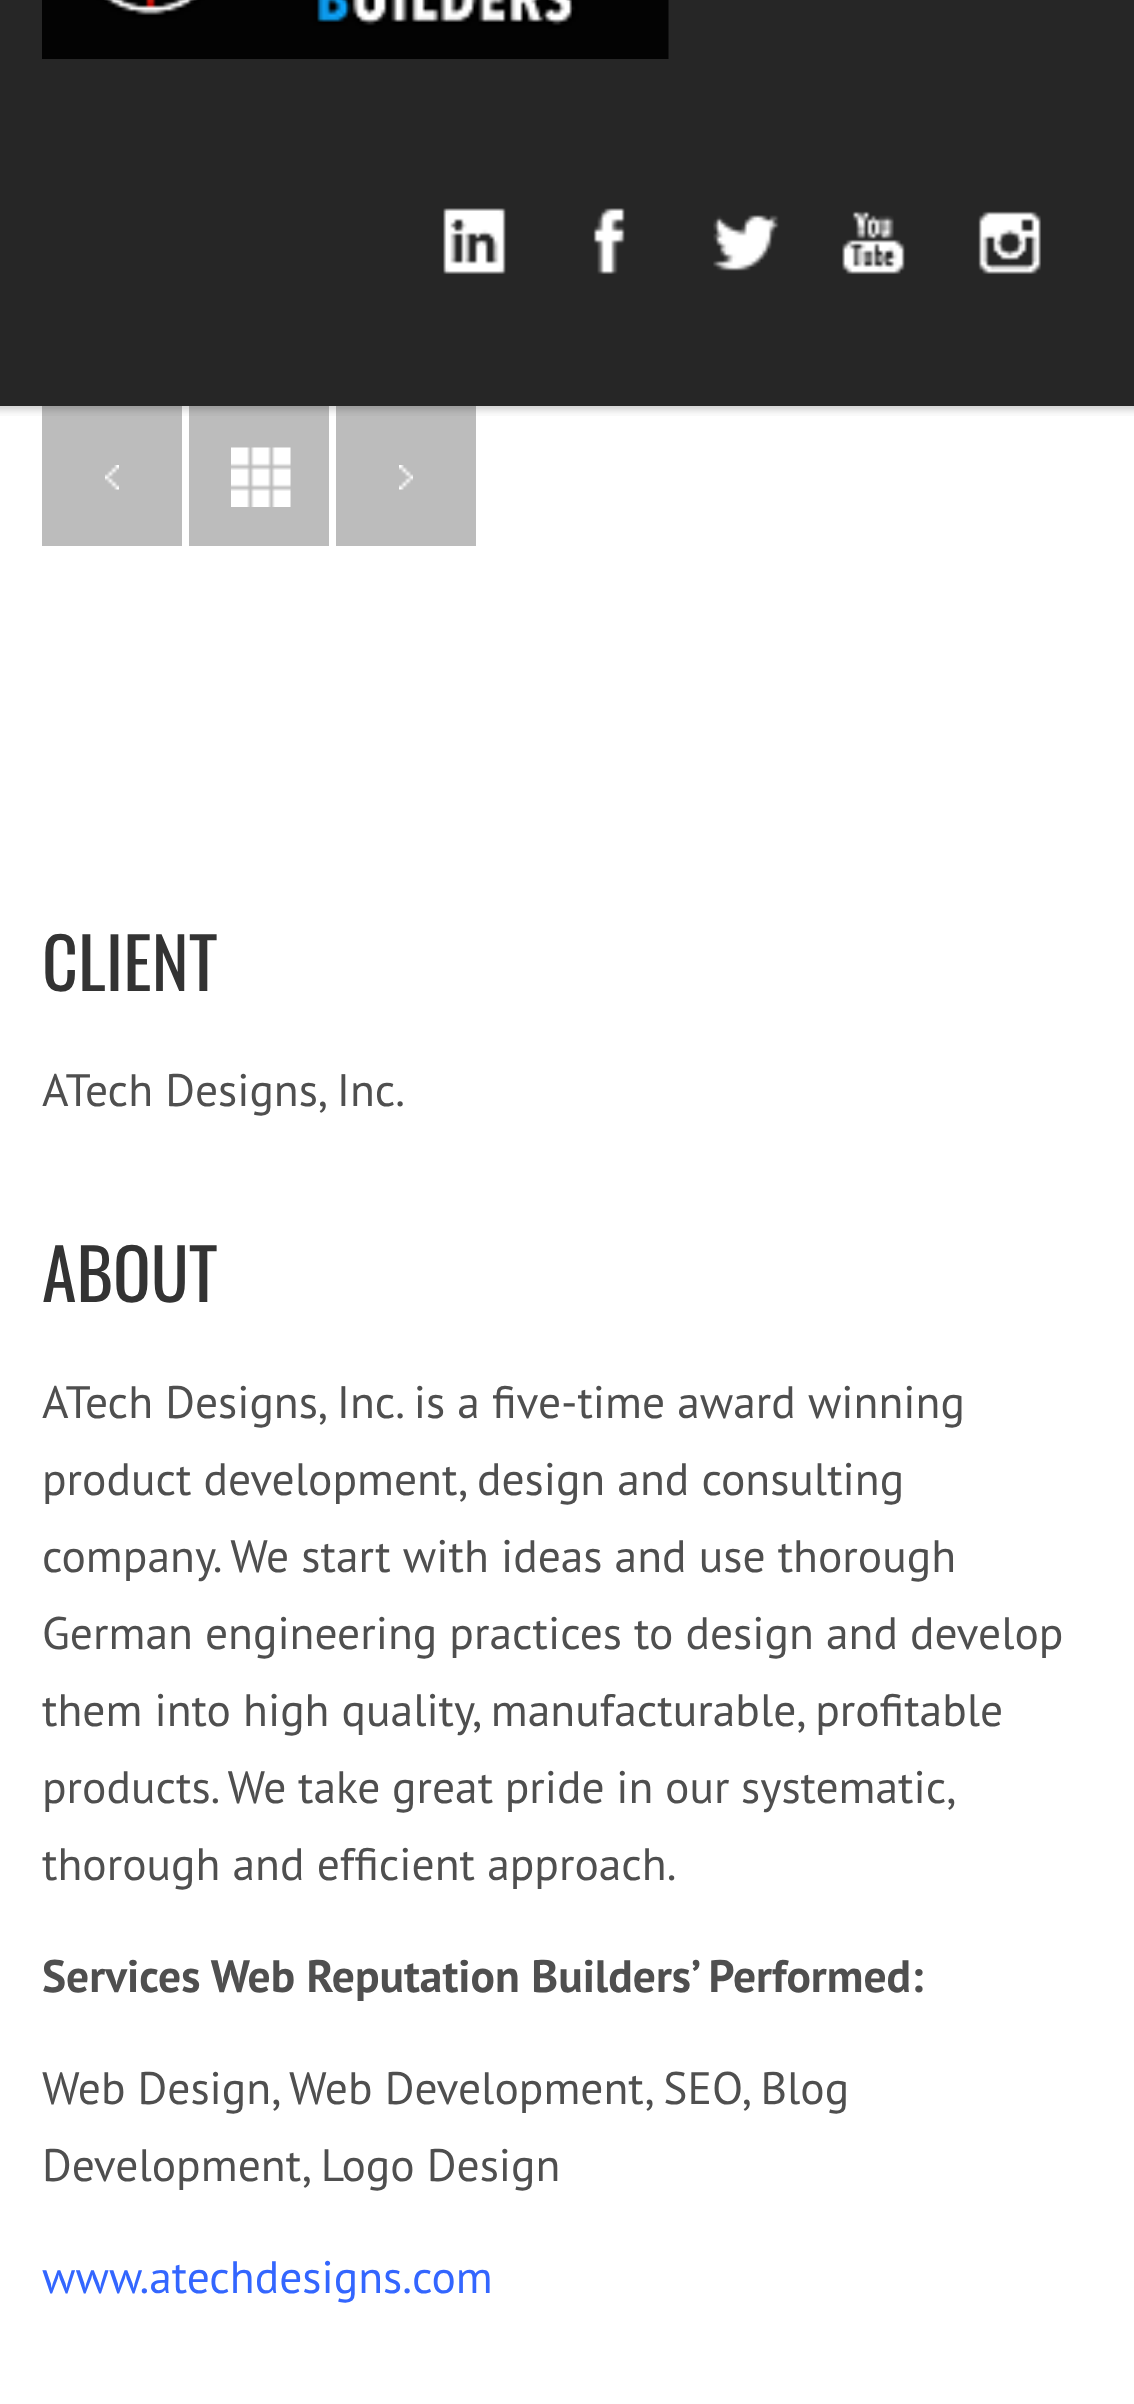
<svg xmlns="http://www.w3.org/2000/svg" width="1134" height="2404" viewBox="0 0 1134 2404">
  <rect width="100%" height="100%" fill="rgb(255,255,255)"/>
  <rect x="42" y="406" width="140" height="140" fill="rgb(188,188,188)"/>
  <rect x="189" y="406" width="140" height="140" fill="rgb(188,188,188)"/>
  <rect x="336" y="406" width="140" height="140" fill="rgb(188,188,188)"/>
  <image x="0" y="406" width="1134" height="10" href="pic1.png"/>
  <rect x="0" y="0" width="1134" height="406" fill="rgb(38,38,38)"/>
  <image x="42" y="0" width="627" height="59" href="pic2.png"/>
  <image x="443" y="208" width="63" height="66" href="pic3.png"/>
  <image x="593" y="208" width="32" height="66" href="pic4.png"/>
  <image x="713" y="215" width="66" height="56" href="pic5.png"/>
  <image x="842" y="211" width="63" height="63" href="pic6.png"/>
  <image x="978" y="211" width="63" height="63" href="pic7.png"/>
  <image x="105" y="465" width="14" height="25" href="pic8.png"/>
  <image x="231" y="447" width="60" height="60" href="pic9.png"/>
  <image x="399" y="465" width="14" height="25" href="pic10.png"/>
  <text x="42" y="991" font-family="Oswald" font-size="70" fill="rgb(51,51,51)">CLIENT</text>
  <text x="42" y="1106" font-family="PT Sans" font-size="45.5" fill="rgb(79,79,79)">ATech Designs, Inc.</text>
  <text x="42" y="1302" font-family="Oswald" font-size="70" fill="rgb(51,51,51)">ABOUT</text>
  <g font-family="PT Sans" font-size="45.5" fill="rgb(79,79,79)">
    <text>
      <tspan x="42" y="1418">ATech Designs, Inc. is a five-time award winning</tspan>
      <tspan x="42" y="1495">product development, design and consulting</tspan>
      <tspan x="42" y="1572">company. We start with ideas and use thorough</tspan>
      <tspan x="42" y="1649">German engineering practices to design and develop</tspan>
      <tspan x="42" y="1726">them into high quality, manufacturable, profitable</tspan>
      <tspan x="42" y="1803" word-spacing="-0.5">products. We take great pride in our systematic,</tspan>
      <tspan x="42" y="1880">thorough and efficient approach.</tspan>
    </text>
  </g>
  <text x="42" y="1992" font-family="PT Sans" font-size="45.5" font-weight="bold" fill="rgb(79,79,79)">Services Web Reputation Builders’ Performed:</text>
  <g font-family="PT Sans" font-size="45.5" fill="rgb(79,79,79)">
    <text>
      <tspan x="42" y="2104">Web Design, Web Development, SEO, Blog</tspan>
      <tspan x="42" y="2181">Development, Logo Design</tspan>
    </text>
  </g>
  <text x="42" y="2293" font-family="PT Sans" font-size="45.5" fill="rgb(51,102,255)">www.atechdesigns.com</text>
</svg>
